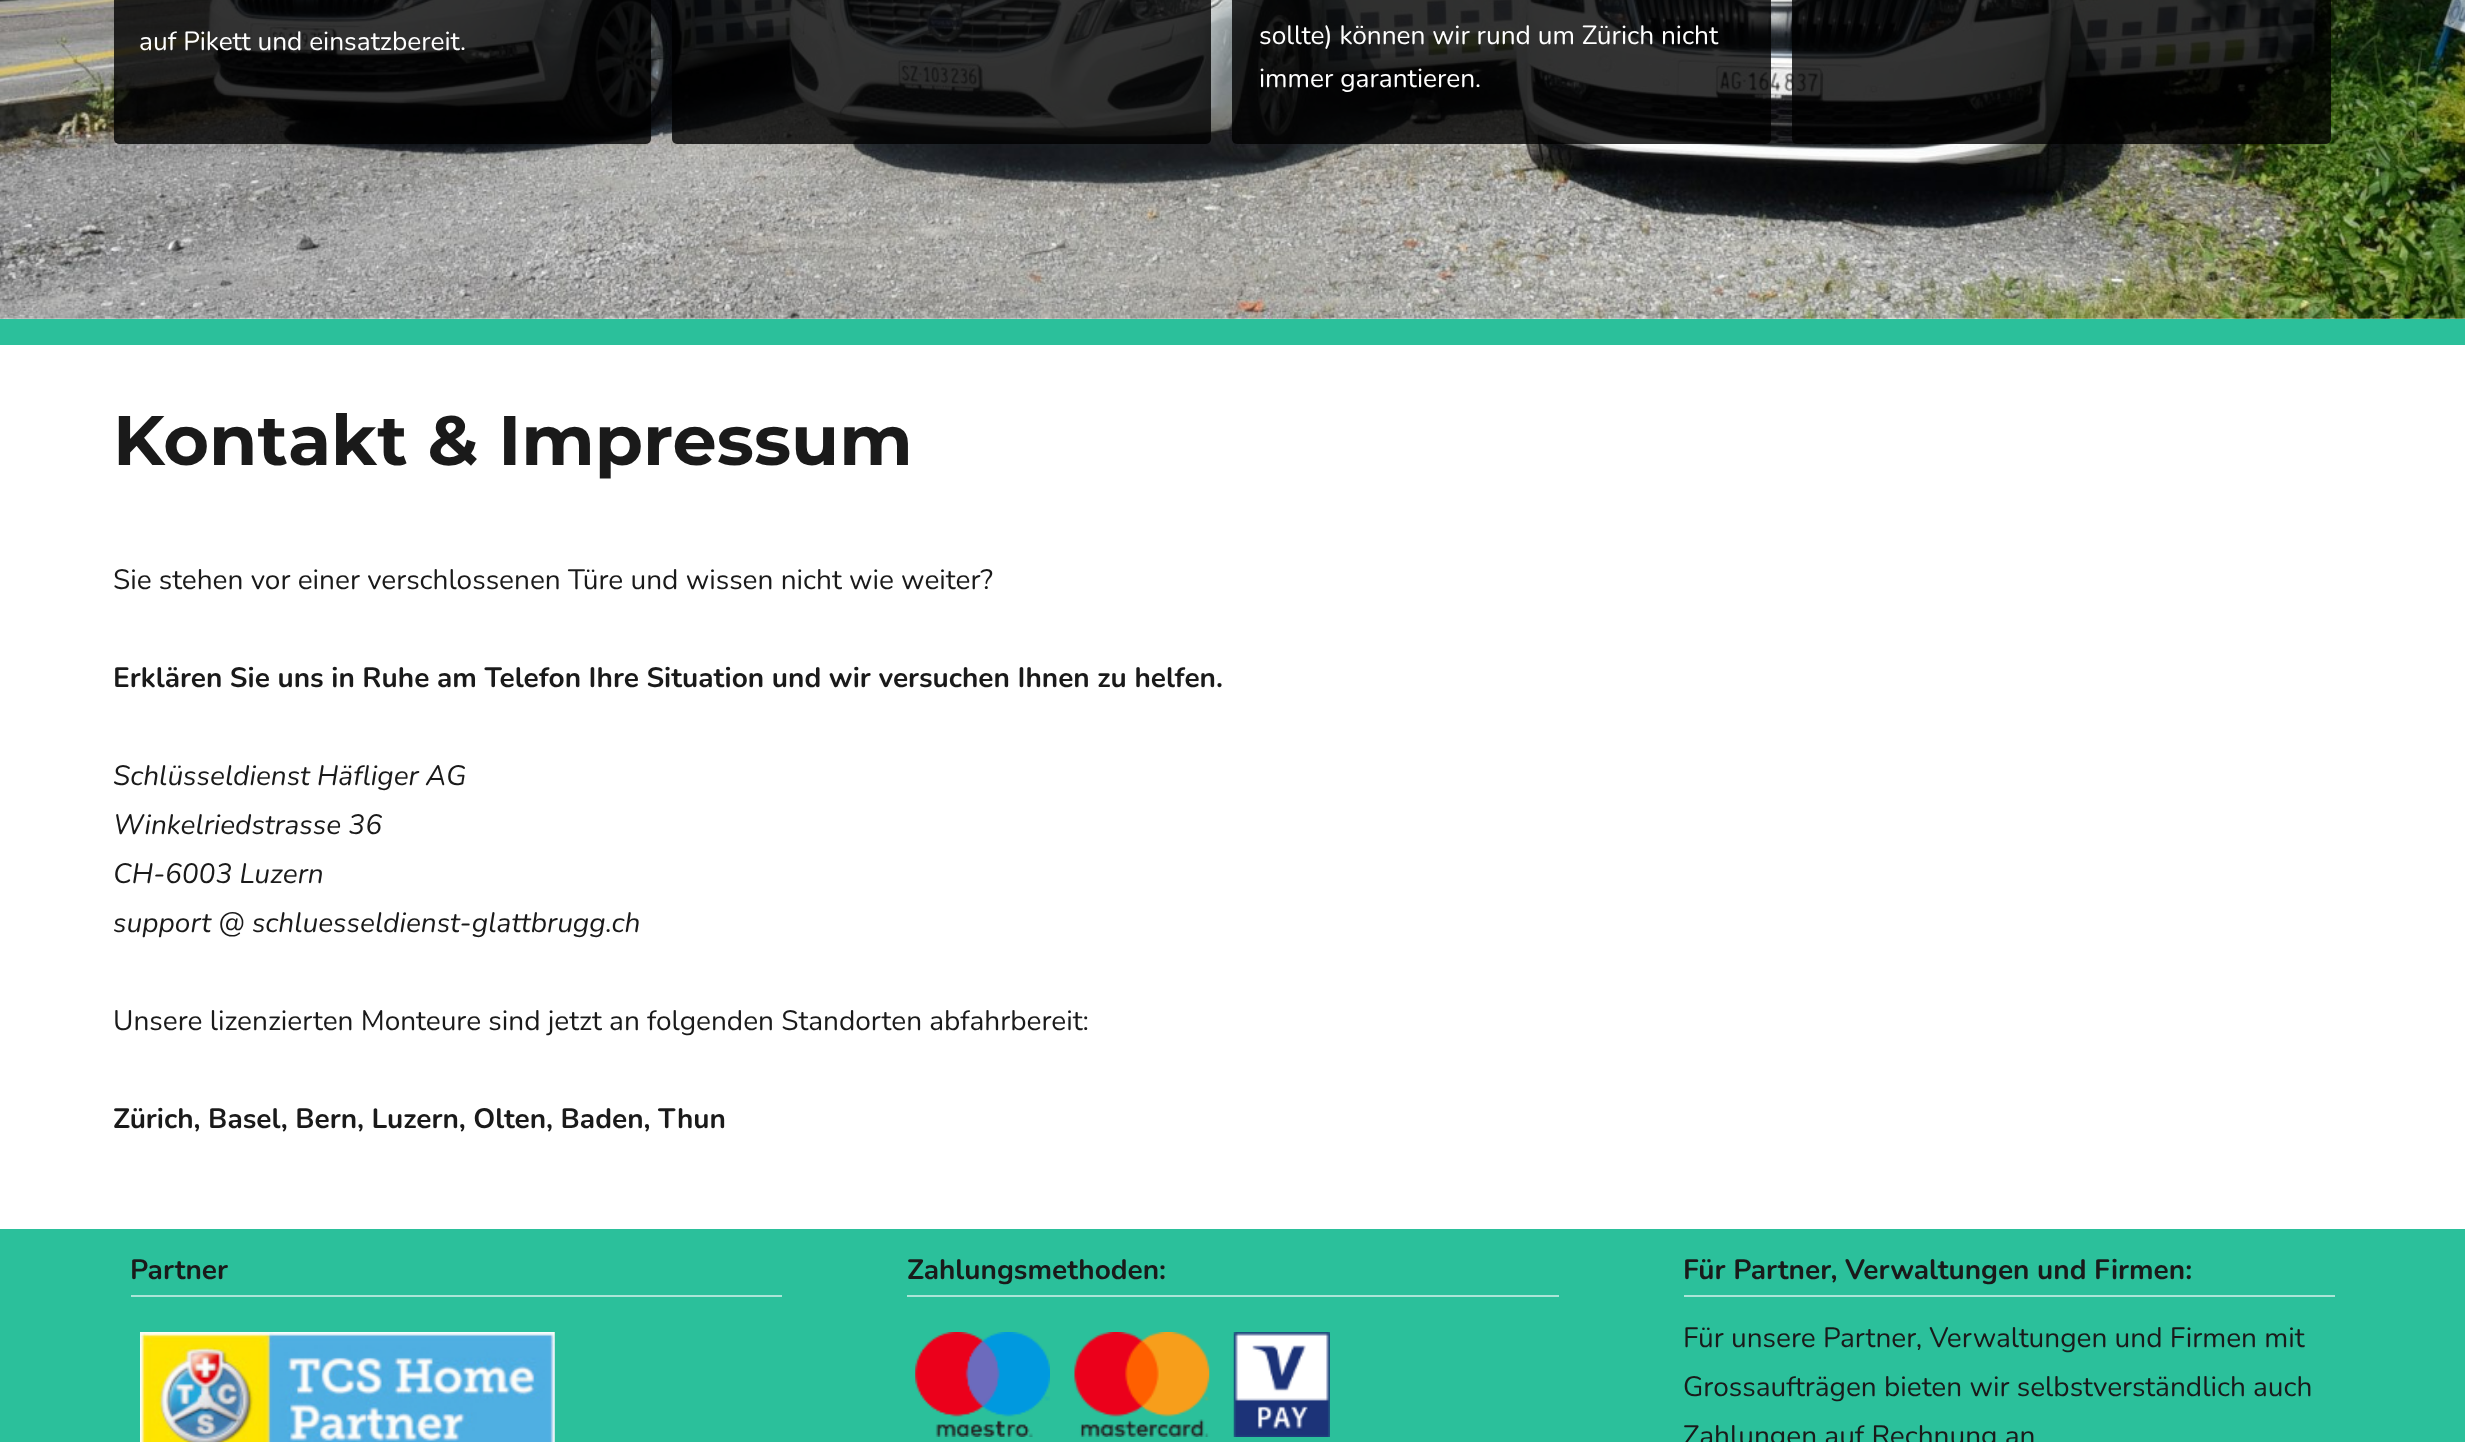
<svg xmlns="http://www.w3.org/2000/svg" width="2465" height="1442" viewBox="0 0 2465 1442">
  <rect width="100%" height="100%" fill="rgb(255,255,255)"/>
  <image x="0" y="0" width="2465" height="319" href="pic1.png"/>
  <rect x="0" y="319" width="2465" height="26" fill="rgb(43,192,155)"/>
  <rect x="114" y="-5" width="537" height="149" rx="5" fill="rgba(0,0,0,0.8)"/>
  <text x="139" y="50" font-family="Nunito" font-size="26.25" fill="rgb(255,255,255)">auf Pikett und einsatzbereit.</text>
  <rect x="672" y="-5" width="539" height="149" rx="5" fill="rgba(0,0,0,0.8)"/>
  <rect x="1232" y="-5" width="539" height="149" rx="5" fill="rgba(0,0,0,0.8)"/>
  <g font-family="Nunito" font-size="26.25" fill="rgb(255,255,255)">
    <text>
      <tspan x="1259" y="44">sollte) können wir rund um Zürich nicht</tspan>
      <tspan x="1259" y="87">immer garantieren.</tspan>
    </text>
  </g>
  <rect x="1792" y="-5" width="539" height="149" rx="5" fill="rgba(0,0,0,0.8)"/>
  <text x="113" y="465" font-family="Montserrat" font-size="70" font-weight="100" fill="rgb(26,26,26)">Kontakt &amp; Impressum</text>
  <text x="113" y="589" font-family="Nunito" font-size="28" fill="rgb(26,26,26)">Sie stehen vor einer verschlossenen Türe und wissen nicht wie weiter?</text>
  <text x="113" y="687" font-family="Nunito" font-size="28" font-weight="bold" fill="rgb(26,26,26)">Erklären Sie uns in Ruhe am Telefon Ihre Situation und wir versuchen Ihnen zu helfen.</text>
  <g font-family="Nunito" font-size="28" font-style="italic" fill="rgb(26,26,26)">
    <text>
      <tspan x="113" y="785">Schlüsseldienst Häfliger AG</tspan>
      <tspan x="113" y="834">Winkelriedstrasse 36</tspan>
      <tspan x="113" y="883">CH-6003 Luzern</tspan>
      <tspan x="113" y="932">support @ schluesseldienst-glattbrugg.ch</tspan>
    </text>
  </g>
  <text x="113" y="1030" font-family="Nunito" font-size="28" fill="rgb(26,26,26)">Unsere lizenzierten Monteure sind jetzt an folgenden Standorten abfahrbereit:</text>
  <text x="113" y="1128" font-family="Nunito" font-size="28" font-weight="bold" fill="rgb(26,26,26)">Zürich, Basel, Bern, Luzern, Olten, Baden, Thun</text>
  <rect x="0" y="1229" width="2465" height="213" fill="rgb(43,192,155)"/>
  <rect x="131" y="1295" width="651" height="2" fill="rgb(170,229,215)"/>
  <text x="130" y="1279" font-family="Nunito" font-size="28" font-weight="bold" fill="rgb(26,26,26)">Partner</text>
  <image x="140" y="1332" width="415" height="110" href="pic2.png"/>
  <rect x="907" y="1295" width="652" height="2" fill="rgb(170,229,215)"/>
  <text x="907" y="1279" font-family="Nunito" font-size="28" font-weight="bold" fill="rgb(26,26,26)">Zahlungsmethoden:</text>
  <image x="915" y="1332" width="135" height="105" href="pic3.png"/>
  <image x="1074" y="1332" width="136" height="105" href="pic4.png"/>
  <image x="1233" y="1332" width="97" height="105" href="pic5.png"/>
  <rect x="1684" y="1295" width="651" height="2" fill="rgb(170,229,215)"/>
  <text x="1683" y="1279" font-family="Nunito" font-size="28" font-weight="bold" fill="rgb(26,26,26)">Für Partner, Verwaltungen und Firmen:</text>
  <g font-family="Nunito" font-size="28" fill="rgb(26,26,26)">
    <text>
      <tspan x="1683" y="1347">Für unsere Partner, Verwaltungen und Firmen mit</tspan>
      <tspan x="1683" y="1396">Grossaufträgen bieten wir selbstverständlich auch</tspan>
      <tspan x="1683" y="1445">Zahlungen auf Rechnung an</tspan>
    </text>
  </g>
</svg>
